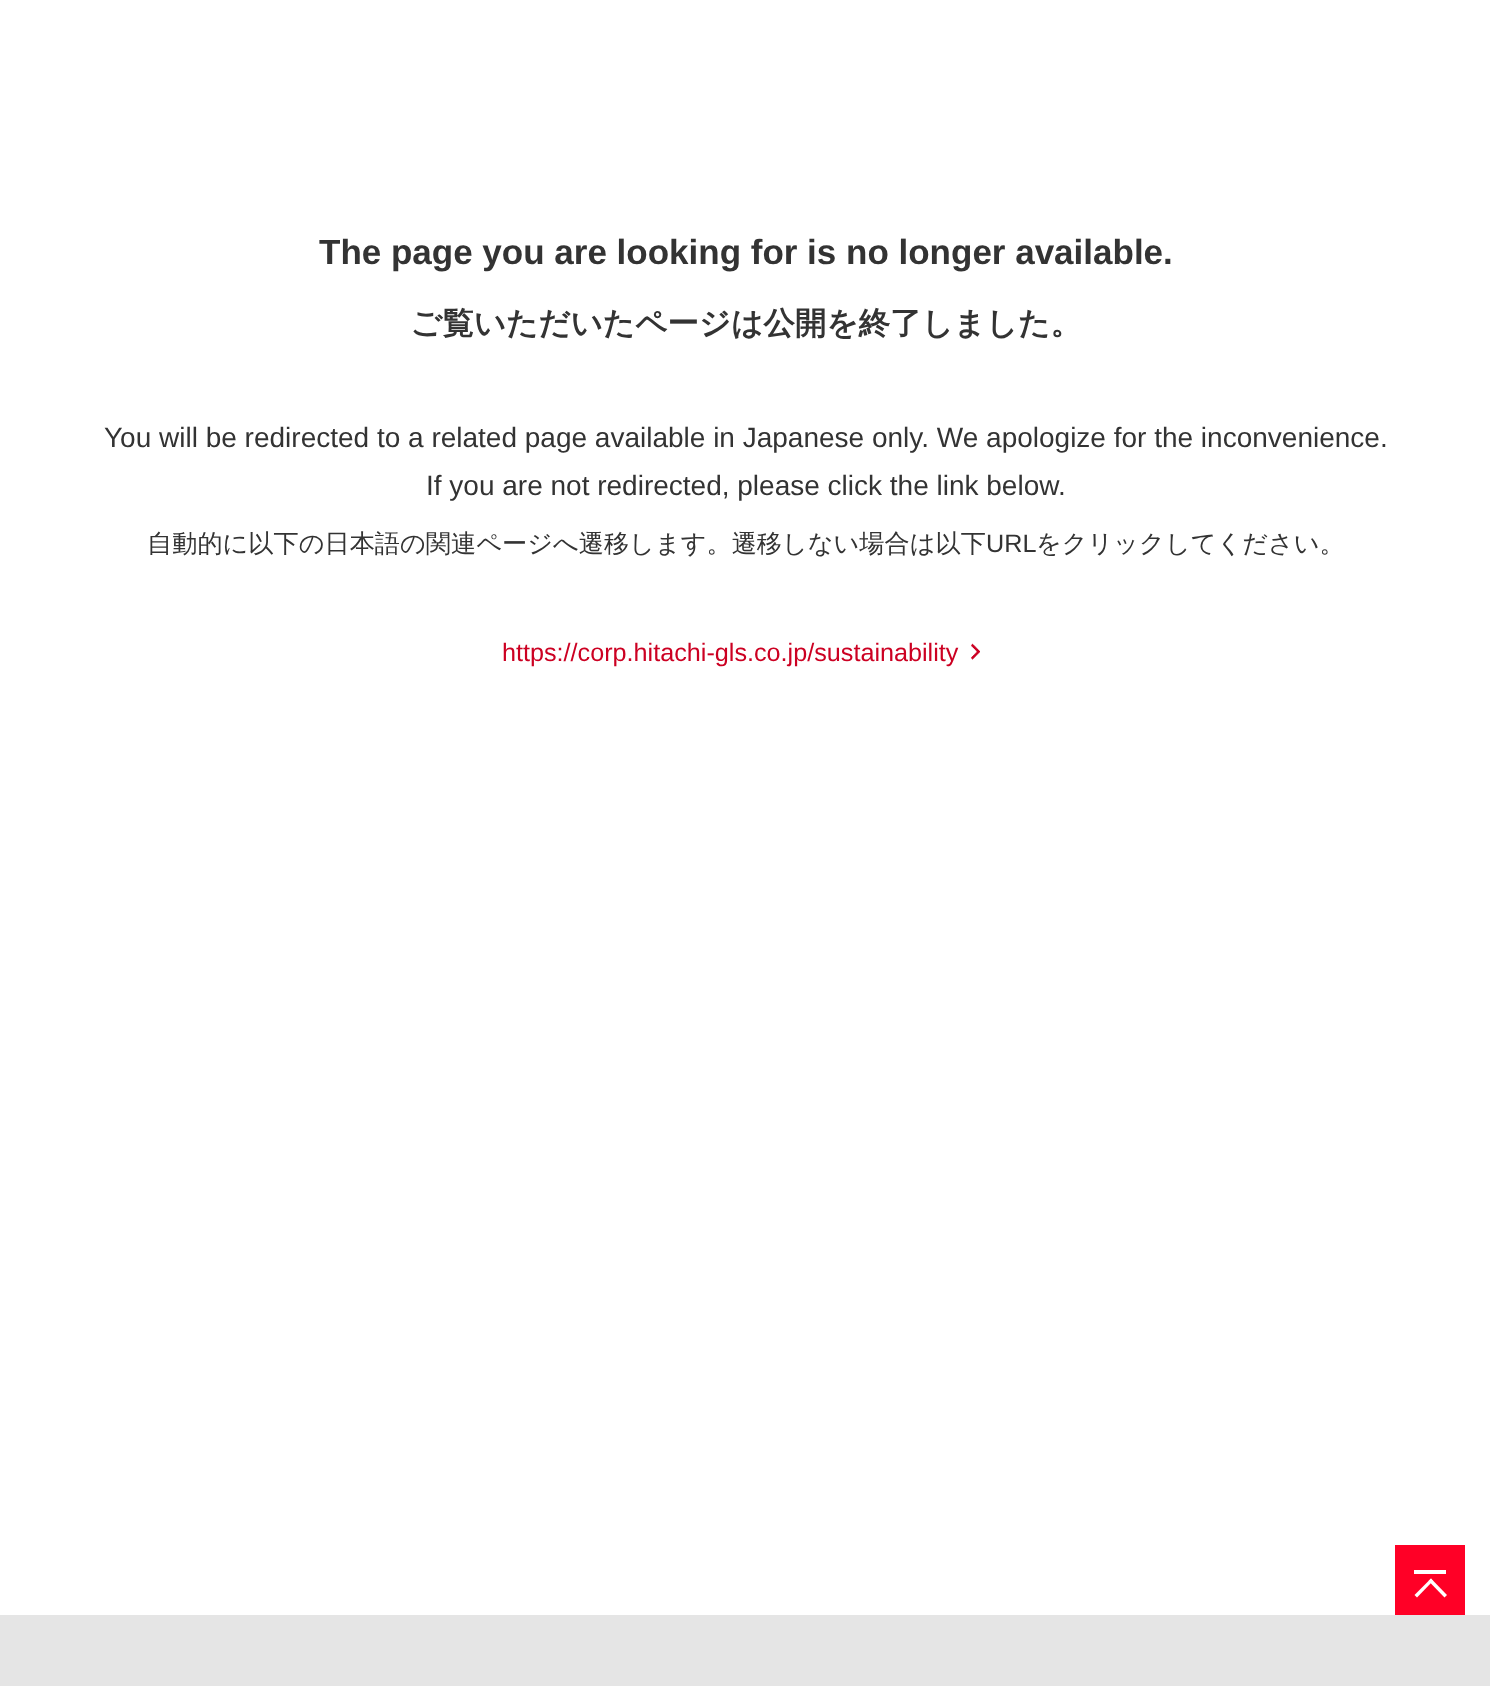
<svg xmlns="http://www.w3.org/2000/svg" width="1490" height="1686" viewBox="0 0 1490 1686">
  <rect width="100%" height="100%" fill="rgb(255,255,255)"/>
  <text x="319" y="264" font-family="Liberation Sans" font-size="35" font-weight="bold" fill="rgb(51,51,51)">The page you are looking for is no longer available.</text>
  <text x="410" y="334" font-family="WenQuanYi Zen Hei" font-size="31.5" font-weight="bold" fill="rgb(51,51,51)">ご覧いただいたページは公開を終了しました。</text>
  <g font-family="Liberation Sans" font-size="28" fill="rgb(51,51,51)">
    <text x="104" y="447">You will be redirected to a related page available in Japanese only. We apologize for the inconvenience.</text>
    <text x="426" y="495">If you are not redirected, please click the link below.</text>
  </g>
  <text x="147" y="552" font-family="WenQuanYi Zen Hei" font-size="25.2" font-weight="500" fill="rgb(51,51,51)">自動的に以下の日本語の関連ページへ遷移します。遷移しない場合は以下</text>
  <text x="986" y="552" font-family="Liberation Sans" font-size="25.2" fill="rgb(51,51,51)">URL</text>
  <text x="1036" y="552" font-family="WenQuanYi Zen Hei" font-size="25.2" font-weight="500" fill="rgb(51,51,51)">をクリックしてください。</text>
  <text x="502" y="661" font-family="Liberation Sans" font-size="25.2" fill="rgb(204,0,34)">https://corp.hitachi-gls.co.jp/sustainability</text>
  <image x="971" y="643" width="9" height="17" href="pic1.png"/>
  <rect x="0" y="1615" width="1490" height="71" fill="rgb(229,229,229)"/>
  <rect x="1395" y="1545" width="70" height="70" fill="rgb(255,0,38)"/>
  <rect x="1414" y="1570" width="32" height="4" fill="rgb(255,255,255)"/>
  <path d="M1414.5 1595L1431 1578.5L1433 1581L1417 1597.5Z" fill="rgb(255,255,255)"/>
  <path d="M1428.5 1581L1431 1578.5L1447 1595L1444.5 1597.5Z" fill="rgb(255,255,255)"/>
</svg>
